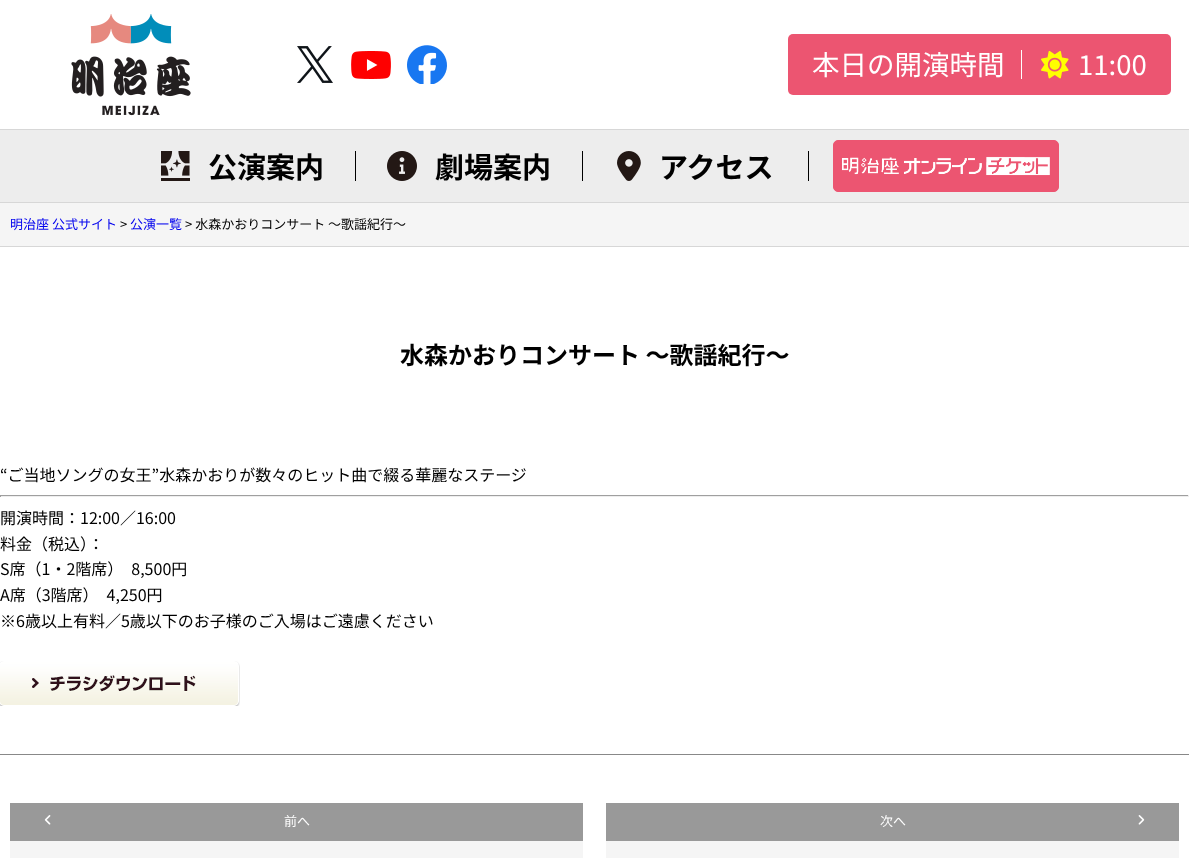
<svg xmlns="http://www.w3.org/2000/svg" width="1189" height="858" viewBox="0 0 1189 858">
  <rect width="100%" height="100%" fill="rgb(255,255,255)"/>
  <image x="71" y="14" width="120" height="102" href="pic1.png"/>
  <image x="297" y="46" width="36" height="37" href="pic2.png"/>
  <image x="351" y="51" width="40" height="28" href="pic3.png"/>
  <image x="407" y="45" width="40" height="39" href="pic4.png"/>
  <rect x="788" y="34" width="383" height="61" rx="5" fill="rgb(236,85,113)"/>
  <rect x="1021" y="50" width="1" height="29" fill="rgb(255,255,255)"/>
  <text x="812" y="75" font-family="Noto Sans JP" font-size="27.5" fill="rgb(255,255,255)">本日の開演時間</text>
  <image x="1041" y="50" width="28" height="29" href="pic5.png"/>
  <text x="1078" y="75" font-family="Noto Sans JP" font-size="27.5" fill="rgb(255,255,255)">11:00</text>
  <rect x="0" y="130" width="1189" height="72" fill="rgb(237,237,237)"/>
  <rect x="0" y="129" width="1189" height="1" fill="rgb(215,215,215)"/>
  <rect x="0" y="202" width="1189" height="1" fill="rgb(215,215,215)"/>
  <rect x="355" y="151" width="1" height="30" fill="rgb(0,0,0)"/>
  <image x="161" y="151" width="29" height="30" href="pic6.png"/>
  <text x="208" y="178" font-family="Noto Sans JP" font-size="29" font-weight="bold" fill="rgb(0,0,0)">公演案内</text>
  <rect x="582" y="151" width="1" height="30" fill="rgb(0,0,0)"/>
  <image x="387" y="151" width="30" height="30" href="pic7.png"/>
  <text x="435" y="178" font-family="Noto Sans JP" font-size="29" font-weight="bold" fill="rgb(0,0,0)">劇場案内</text>
  <rect x="808" y="151" width="1" height="30" fill="rgb(0,0,0)"/>
  <image x="617" y="151" width="24" height="30" href="pic8.png"/>
  <text x="659" y="178" font-family="Noto Sans JP" font-size="29" font-weight="bold" fill="rgb(0,0,0)">アクセス</text>
  <rect x="833.5" y="140.5" width="225" height="51" rx="4.5" fill="rgb(236,85,113)" stroke="rgb(236,85,113)"/>
  <image x="842" y="156" width="208" height="20" href="pic9.png"/>
  <rect x="0" y="203" width="1189" height="43" fill="rgb(245,245,245)"/>
  <rect x="0" y="246" width="1189" height="1" fill="rgb(215,215,215)"/>
  <text x="10" y="229" font-family="Noto Sans JP" font-size="13" fill="rgb(0,0,238)">明治座 公式サイト</text>
  <text x="120" y="229" font-family="Noto Sans JP" font-size="13" fill="rgb(0,0,0)">&gt;</text>
  <text x="130" y="229" font-family="Noto Sans JP" font-size="13" fill="rgb(0,0,238)">公演一覧</text>
  <text x="185" y="229" font-family="Noto Sans JP" font-size="13" fill="rgb(0,0,0)">&gt; 水森かおりコンサート ～歌謡紀行～</text>
  <text x="400" y="364" font-family="Noto Sans JP" font-size="24" font-weight="bold" fill="rgb(0,0,0)">水森かおりコンサート ～歌謡紀行～</text>
  <text x="0" y="481" font-family="Noto Sans JP" font-size="16" fill="rgb(0,0,0)">“ご当地ソングの女王”水森かおりが数々のヒット曲で綴る華麗なステージ</text>
  <rect x="0" y="495" width="1189" height="1" fill="rgb(159,159,159)"/>
  <rect x="1188" y="495" width="1" height="2" fill="rgb(238,238,238)"/>
  <rect x="0" y="496" width="1189" height="1" fill="rgb(238,238,238)"/>
  <rect x="0" y="495" width="1" height="2" fill="rgb(159,159,159)"/>
  <g font-family="Noto Sans JP" font-size="16" fill="rgb(0,0,0)">
    <text>
      <tspan x="0" y="524">開演時間：12:00／16:00</tspan>
      <tspan x="0" y="550">料金（税込）：</tspan>
      <tspan x="0" y="575">S席（1・2階席）　8,500円</tspan>
      <tspan x="0" y="601">A席（3階席）　4,250円</tspan>
      <tspan x="0" y="627">※6歳以上有料／5歳以下のお子様のご入場はご遠慮ください</tspan>
    </text>
  </g>
  <image x="0" y="661" width="240" height="45" href="pic10.png"/>
  <rect x="0" y="754" width="1189" height="1" fill="rgb(136,136,136)"/>
  <rect x="10" y="841" width="573" height="17" fill="rgb(245,245,245)"/>
  <rect x="10" y="803" width="573" height="38" fill="rgb(153,153,153)"/>
  <image x="44" y="815" width="7" height="10" href="pic11.png"/>
  <text x="284" y="826" font-family="Noto Sans JP" font-size="13" fill="rgb(255,255,255)">前へ</text>
  <rect x="606" y="841" width="573" height="17" fill="rgb(245,245,245)"/>
  <rect x="606" y="803" width="573" height="38" fill="rgb(153,153,153)"/>
  <text x="880" y="826" font-family="Noto Sans JP" font-size="13" fill="rgb(255,255,255)">次へ</text>
  <image x="1138" y="815" width="7" height="10" href="pic12.png"/>
</svg>
